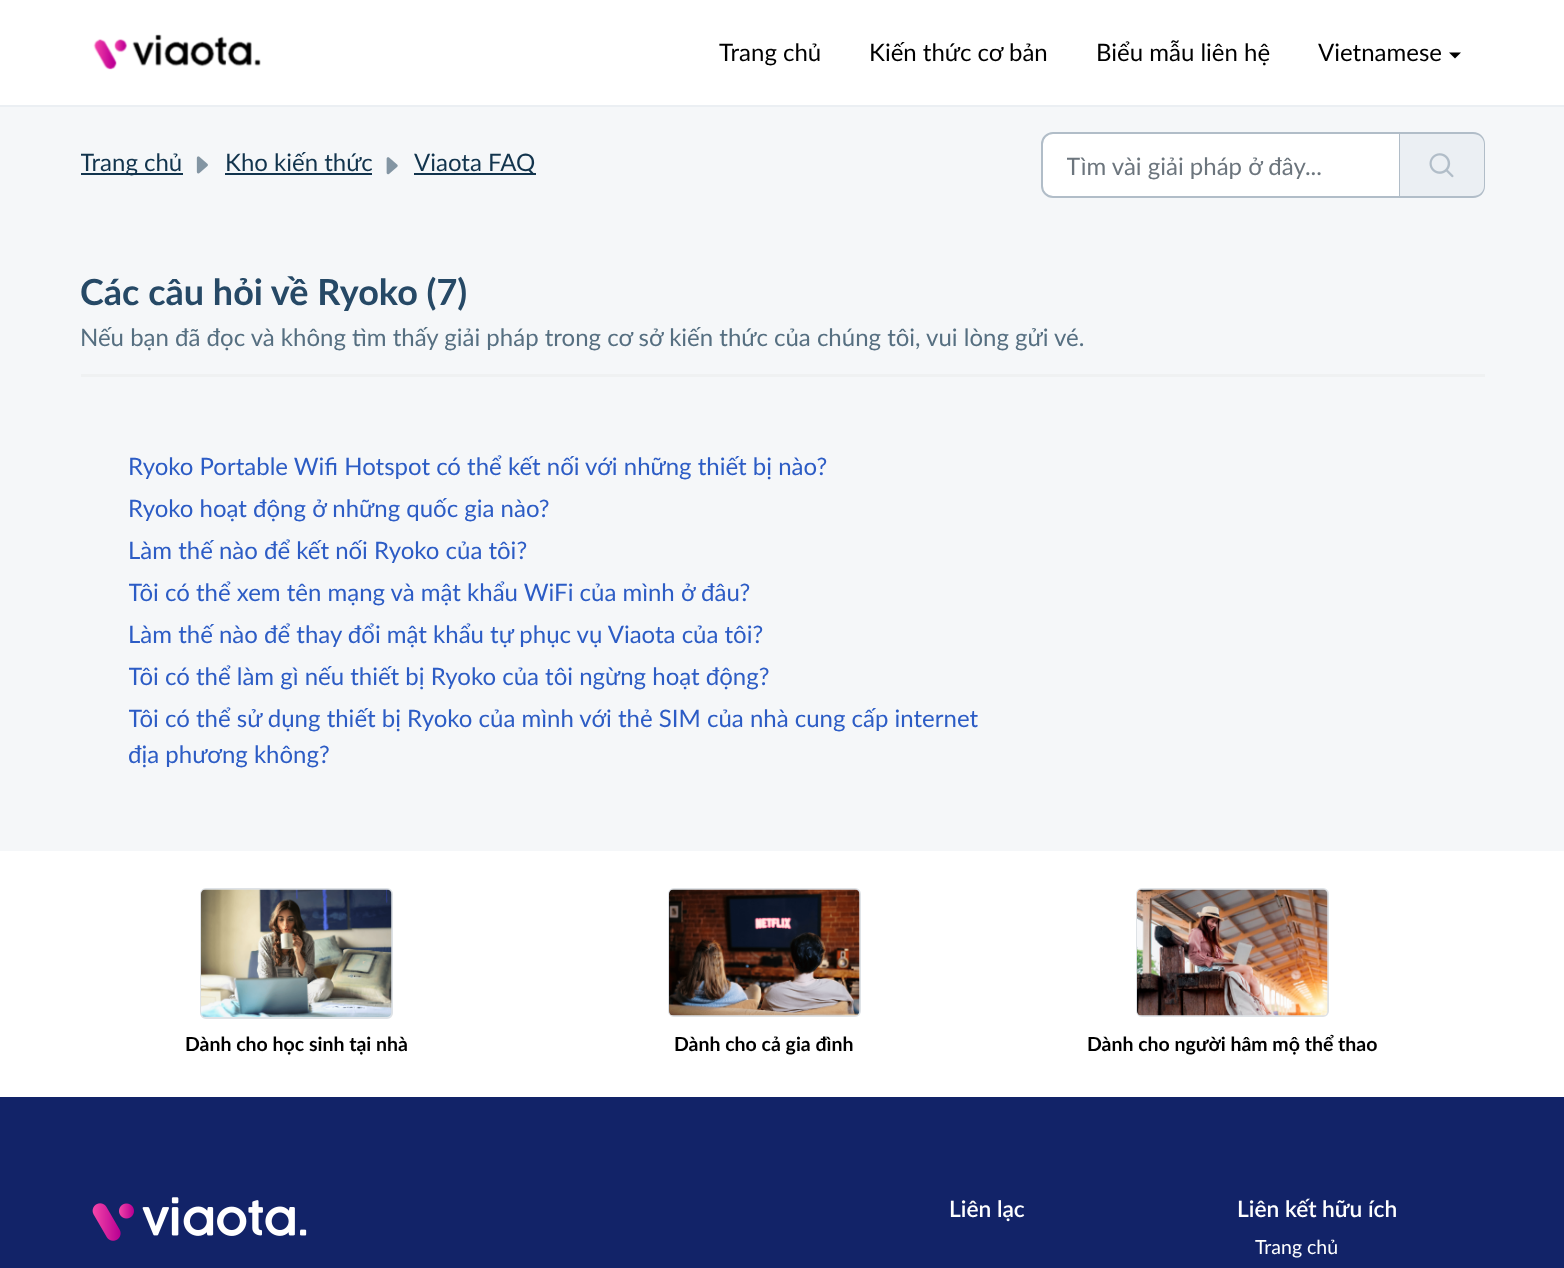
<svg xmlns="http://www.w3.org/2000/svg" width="1564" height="1268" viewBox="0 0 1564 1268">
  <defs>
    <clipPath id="clip1"><rect x="81" y="144" width="114" height="42"/></clipPath>
    <clipPath id="clip2"><rect x="1067" y="152" width="309" height="28"/></clipPath>
    <clipPath id="clip3"><rect x="129" y="575" width="621" height="36"/></clipPath>
    <clipPath id="clip4"><rect x="129" y="659" width="641" height="36"/></clipPath>
    <clipPath id="clip5"><rect x="129" y="701" width="872" height="72"/></clipPath>
  </defs>
  <rect width="100%" height="100%" fill="rgb(245,247,249)"/>
  <rect x="0" y="0" width="1564" height="105" fill="rgb(255,255,255)"/>
  <rect x="0" y="105" width="1564" height="2" fill="rgb(235,239,243)"/>
  <image x="93" y="34" width="168" height="36" href="pic1.png"/>
  <g font-family="Lato" font-size="24" fill="rgb(0,0,0)">
    <text x="719" y="61">Trang chủ</text>
    <text x="869" y="61">Kiến thức cơ bản</text>
    <text x="1096" y="61">Biểu mẫu liên hệ</text>
    <text x="1318" y="61">Vietnamese</text>
  </g>
  <path d="M1449 52.5H1461L1455 58.5Z" fill="rgb(0,0,0)"/>
  <rect x="81" y="173" width="102" height="2" fill="rgb(18,52,77)"/>
  <g clip-path="url(#clip1)">
    <text x="80" y="171" font-family="Lato" font-size="24" fill="rgb(18,52,77)">Trang chủ</text>
  </g>
  <image x="196" y="156" width="12" height="18" href="pic2.png"/>
  <text x="225" y="171" font-family="Lato" font-size="24" fill="rgb(18,52,77)">Kho kiến thức</text>
  <rect x="225" y="173" width="147" height="2" fill="rgb(18,52,77)"/>
  <image x="386" y="157" width="12" height="18" href="pic3.png"/>
  <rect x="414" y="173" width="122" height="2" fill="rgb(18,52,77)"/>
  <text x="414" y="171" font-family="Lato" font-size="24" fill="rgb(18,52,77)">Viaota FAQ</text>
  <path d="M1053 133H1400V197H1053C1047 197 1042 192 1042 186V144C1042 138 1047 133 1053 133Z" fill="rgb(255,255,255)" stroke="rgb(177,189,200)" stroke-width="2"/>
  <g clip-path="url(#clip2)">
    <text x="1066" y="175" font-family="Lato" font-size="24" fill="rgb(108,117,125)">Tìm vài giải pháp ở đây...</text>
  </g>
  <path d="M1400 132H1473C1479.5 132 1485 137.5 1485 144V186C1485 192.5 1479.5 198 1473 198H1400Z" fill="rgb(235,239,243)"/>
  <path d="M1400 132H1473C1480 132 1485 137 1485 144V186C1485 193 1480 198 1473 198H1400ZM1400 134H1473C1479 134 1484 138 1484 144V186C1484 192 1479 196 1473 196H1400Z" fill="rgb(177,189,200)" fill-rule="evenodd"/>
  <image x="1429" y="153" width="25" height="25" href="pic4.png"/>
  <text x="80" y="305" font-family="Lato" font-size="36" font-weight="bold" fill="rgb(38,73,102)">Các câu hỏi về Ryoko (7)</text>
  <text x="80" y="346" font-family="Lato" font-size="24" fill="rgb(86,111,129)">Nếu bạn đã đọc và không tìm thấy giải pháp trong cơ sở kiến thức của chúng tôi, vui lòng gửi vé.</text>
  <rect x="81" y="374" width="1404" height="3" fill="rgb(239,241,242)"/>
  <g font-family="Lato" font-size="24" fill="rgb(44,92,197)">
    <text>
      <tspan x="128" y="475">Ryoko Portable Wifi Hotspot có thể kết nối với những thiết bị nào?</tspan>
      <tspan x="128" y="517">Ryoko hoạt động ở những quốc gia nào?</tspan>
      <tspan x="128" y="559">Làm thế nào để kết nối Ryoko của tôi?</tspan>
    </text>
  </g>
  <g clip-path="url(#clip3)">
    <text x="128" y="601" font-family="Lato" font-size="24" fill="rgb(44,92,197)">Tôi có thể xem tên mạng và mật khẩu WiFi của mình ở đâu?</text>
  </g>
  <text x="128" y="643" font-family="Lato" font-size="24" fill="rgb(44,92,197)">Làm thế nào để thay đổi mật khẩu tự phục vụ Viaota của tôi?</text>
  <g clip-path="url(#clip4)">
    <text x="128" y="685" font-family="Lato" font-size="24" fill="rgb(44,92,197)">Tôi có thể làm gì nếu thiết bị Ryoko của tôi ngừng hoạt động?</text>
  </g>
  <g clip-path="url(#clip5)">
    <text x="128" y="727" font-family="Lato" font-size="24" fill="rgb(44,92,197)">Tôi có thể sử dụng thiết bị Ryoko của mình với thẻ SIM của nhà cung cấp internet</text>
  </g>
  <text x="128" y="763" font-family="Lato" font-size="24" fill="rgb(44,92,197)">địa phương không?</text>
  <rect x="0" y="851" width="1564" height="246" fill="rgb(255,255,255)"/>
  <rect x="201" y="889" width="191" height="129" rx="5" fill="none" stroke="rgb(222,226,230)" stroke-width="2"/>
  <image x="201" y="889" width="191" height="128" href="pic5.png"/>
  <text x="185" y="1051" font-family="Lato" font-size="19.5" font-weight="bold" fill="rgb(0,0,0)">Dành cho học sinh tại nhà</text>
  <rect x="669" y="889" width="191" height="127" rx="5" fill="none" stroke="rgb(222,226,230)" stroke-width="2"/>
  <image x="669" y="889" width="191" height="127" href="pic6.png"/>
  <text x="674" y="1051" font-family="Lato" font-size="19.5" font-weight="bold" fill="rgb(0,0,0)">Dành cho cả gia đình</text>
  <rect x="1137" y="889" width="191" height="127" rx="5" fill="none" stroke="rgb(222,226,230)" stroke-width="2"/>
  <image x="1137" y="889" width="191" height="127" href="pic7.png"/>
  <text x="1087" y="1051" font-family="Lato" font-size="19.5" font-weight="bold" fill="rgb(0,0,0)">Dành cho người hâm mộ thể thao</text>
  <rect x="0" y="1097" width="1564" height="171" fill="rgb(18,35,104)"/>
  <image x="92" y="1197" width="215" height="44" href="pic8.png"/>
  <g font-family="Lato" font-size="22.75" font-weight="600" fill="rgb(255,255,255)">
    <text x="949" y="1217">Liên lạc</text>
    <text x="1237" y="1217">Liên kết hữu ích</text>
  </g>
  <text x="1255" y="1254" font-family="Lato" font-size="19.5" fill="rgb(255,255,255)">Trang chủ</text>
</svg>
